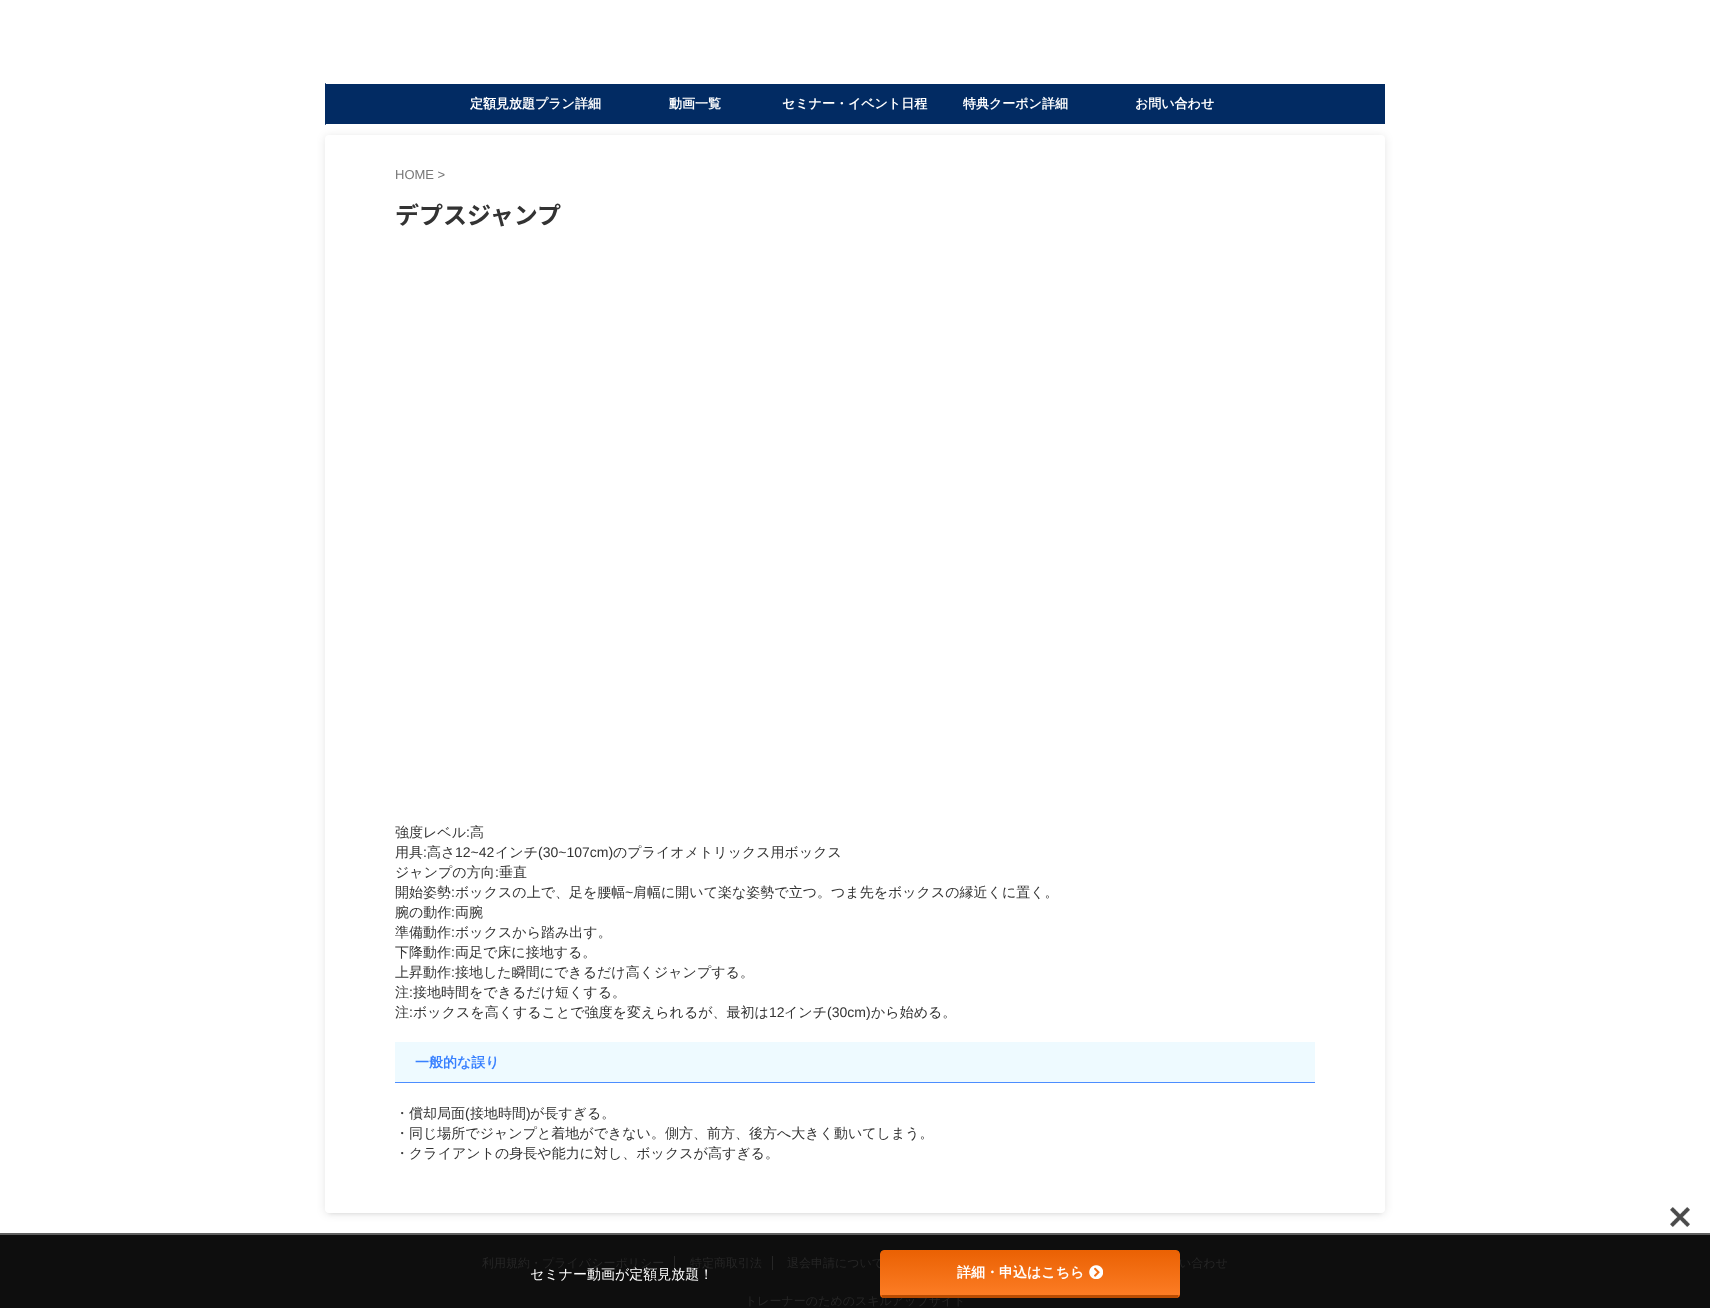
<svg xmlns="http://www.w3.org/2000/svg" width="1710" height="1308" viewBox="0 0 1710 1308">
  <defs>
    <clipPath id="clip1"><rect x="880" y="1250" width="300" height="48" rx="4"/></clipPath>
    <linearGradient id="g1" gradientUnits="userSpaceOnUse" x1="1030" y1="1250" x2="1030" y2="1295"><stop offset="0" stop-color="rgb(234,97,3)"/><stop offset="1" stop-color="rgb(252,124,36)"/></linearGradient>
    <linearGradient id="g2" gradientUnits="userSpaceOnUse" x1="1030" y1="1295" x2="1030" y2="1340"><stop offset="0" stop-color="rgb(234,97,3)"/><stop offset="1" stop-color="rgb(252,124,36)"/></linearGradient>
  </defs>
  <rect width="100%" height="100%" fill="rgb(255,255,255)"/>
  <rect x="325" y="83" width="1060" height="42" rx="1" fill="rgb(2,43,99)"/>
  <rect x="326" y="83" width="1059" height="1" fill="rgb(255,255,255)"/>
  <rect x="326" y="124" width="1059" height="1" fill="rgb(255,255,255)"/>
  <g font-family="WenQuanYi Zen Hei" font-size="13" font-weight="bold" fill="rgb(255,255,255)">
    <text x="470" y="108">定額見放題プラン詳細</text>
    <text x="669" y="108">動画一覧</text>
    <text x="782" y="108">セミナー・イベント日程</text>
    <text x="963" y="108">特典クーポン詳細</text>
    <text x="1135" y="108">お問い合わせ</text>
  </g>
  <rect x="329" y="143" width="1052" height="1070" fill="rgba(0,0,0,0.1)" filter="blur(2px)"/>
  <rect x="325" y="136" width="1060" height="1078" rx="4" fill="rgba(0,0,0,0.1)" filter="blur(4px)"/>
  <rect x="325" y="135" width="1060" height="1078" rx="4" fill="rgb(255,255,255)"/>
  <text x="395" y="179" font-family="Liberation Sans" font-size="13" fill="rgb(119,119,119)">HOME &gt;</text>
  <text x="395" y="224" font-family="Noto Sans JP" font-size="24" font-weight="bold" fill="rgb(51,51,51)">デプスジャンプ</text>
  <text x="395" y="837" font-family="WenQuanYi Zen Hei" font-size="14" font-weight="500" fill="rgb(51,51,51)">強度レベル</text>
  <text x="466" y="837" font-family="Liberation Sans" font-size="14" fill="rgb(51,51,51)">:</text>
  <g font-family="WenQuanYi Zen Hei" font-size="14" font-weight="500" fill="rgb(51,51,51)">
    <text x="470" y="837">高</text>
    <text x="395" y="857">用具</text>
  </g>
  <text x="423" y="857" font-family="Liberation Sans" font-size="14" fill="rgb(51,51,51)">:</text>
  <text x="427" y="857" font-family="WenQuanYi Zen Hei" font-size="14" font-weight="500" fill="rgb(51,51,51)">高さ</text>
  <text x="455" y="857" font-family="Liberation Sans" font-size="14" fill="rgb(51,51,51)">12~42</text>
  <text x="495" y="857" font-family="WenQuanYi Zen Hei" font-size="14" font-weight="500" fill="rgb(51,51,51)">インチ</text>
  <text x="538" y="857" font-family="Liberation Sans" font-size="14" fill="rgb(51,51,51)">(30~107cm)</text>
  <g font-family="WenQuanYi Zen Hei" font-size="14" font-weight="500" fill="rgb(51,51,51)">
    <text x="613" y="857">のプライオメトリックス用ボックス</text>
    <text x="395" y="877">ジャンプの方向</text>
  </g>
  <text x="495" y="877" font-family="Liberation Sans" font-size="14" fill="rgb(51,51,51)">:</text>
  <g font-family="WenQuanYi Zen Hei" font-size="14" font-weight="500" fill="rgb(51,51,51)">
    <text x="499" y="877">垂直</text>
    <text x="395" y="897">開始姿勢</text>
  </g>
  <text x="451" y="897" font-family="Liberation Sans" font-size="14" fill="rgb(51,51,51)">:</text>
  <text x="455" y="897" font-family="WenQuanYi Zen Hei" font-size="14" font-weight="500" fill="rgb(51,51,51)">ボックスの上で、足を腰幅</text>
  <text x="625" y="897" font-family="Liberation Sans" font-size="14" fill="rgb(51,51,51)">~</text>
  <g font-family="WenQuanYi Zen Hei" font-size="14" font-weight="500" fill="rgb(51,51,51)">
    <text x="633" y="897">肩幅に開いて楽な姿勢で立つ。つま先をボックスの縁近くに置く。</text>
    <text x="395" y="917">腕の動作</text>
  </g>
  <text x="451" y="917" font-family="Liberation Sans" font-size="14" fill="rgb(51,51,51)">:</text>
  <g font-family="WenQuanYi Zen Hei" font-size="14" font-weight="500" fill="rgb(51,51,51)">
    <text x="455" y="917">両腕</text>
    <text x="395" y="937">準備動作</text>
  </g>
  <text x="451" y="937" font-family="Liberation Sans" font-size="14" fill="rgb(51,51,51)">:</text>
  <g font-family="WenQuanYi Zen Hei" font-size="14" font-weight="500" fill="rgb(51,51,51)">
    <text x="455" y="937">ボックスから踏み出す。</text>
    <text x="395" y="957">下降動作</text>
  </g>
  <text x="451" y="957" font-family="Liberation Sans" font-size="14" fill="rgb(51,51,51)">:</text>
  <g font-family="WenQuanYi Zen Hei" font-size="14" font-weight="500" fill="rgb(51,51,51)">
    <text x="455" y="957">両足で床に接地する。</text>
    <text x="395" y="977">上昇動作</text>
  </g>
  <text x="451" y="977" font-family="Liberation Sans" font-size="14" fill="rgb(51,51,51)">:</text>
  <g font-family="WenQuanYi Zen Hei" font-size="14" font-weight="500" fill="rgb(51,51,51)">
    <text x="455" y="977">接地した瞬間にできるだけ高くジャンプする。</text>
    <text x="395" y="997">注</text>
  </g>
  <text x="409" y="997" font-family="Liberation Sans" font-size="14" fill="rgb(51,51,51)">:</text>
  <g font-family="WenQuanYi Zen Hei" font-size="14" font-weight="500" fill="rgb(51,51,51)">
    <text x="413" y="997">接地時間をできるだけ短くする。</text>
    <text x="395" y="1017">注</text>
  </g>
  <text x="409" y="1017" font-family="Liberation Sans" font-size="14" fill="rgb(51,51,51)">:</text>
  <text x="413" y="1017" font-family="WenQuanYi Zen Hei" font-size="14" font-weight="500" fill="rgb(51,51,51)">ボックスを高くすることで強度を変えられるが、最初は</text>
  <text x="769" y="1017" font-family="Liberation Sans" font-size="14" fill="rgb(51,51,51)">12</text>
  <text x="784" y="1017" font-family="WenQuanYi Zen Hei" font-size="14" font-weight="500" fill="rgb(51,51,51)">インチ</text>
  <text x="827" y="1017" font-family="Liberation Sans" font-size="14" fill="rgb(51,51,51)">(30cm)</text>
  <text x="871" y="1017" font-family="WenQuanYi Zen Hei" font-size="14" font-weight="500" fill="rgb(51,51,51)">から始める。</text>
  <rect x="395" y="1042" width="920" height="40" fill="rgb(238,250,255)"/>
  <rect x="395" y="1082" width="920" height="1" fill="rgb(76,141,255)"/>
  <text x="415" y="1067" font-family="WenQuanYi Zen Hei" font-size="14" font-weight="bold" fill="rgb(56,128,255)">一般的な誤り</text>
  <text x="395" y="1118" font-family="WenQuanYi Zen Hei" font-size="14" font-weight="500" fill="rgb(51,51,51)">・償却局面</text>
  <text x="465" y="1118" font-family="Liberation Sans" font-size="14" fill="rgb(51,51,51)">(</text>
  <text x="470" y="1118" font-family="WenQuanYi Zen Hei" font-size="14" font-weight="500" fill="rgb(51,51,51)">接地時間</text>
  <text x="526" y="1118" font-family="Liberation Sans" font-size="14" fill="rgb(51,51,51)">)</text>
  <g font-family="WenQuanYi Zen Hei" font-size="14" font-weight="500" fill="rgb(51,51,51)">
    <text x="530" y="1118">が長すぎる。</text>
    <text>
      <tspan x="395" y="1138">・同じ場所でジャンプと着地ができない。側方、前方、後方へ大きく動いてしまう。</tspan>
      <tspan x="395" y="1158">・クライアントの身長や能力に対し、ボックスが高すぎる。</tspan>
    </text>
  </g>
  <rect x="0" y="1233" width="1710" height="2" fill="rgb(96,96,96)"/>
  <rect x="0" y="1235" width="1710" height="73" fill="rgb(14,14,14)"/>
  <text x="482" y="1267" font-family="WenQuanYi Zen Hei" font-size="12" font-weight="500" fill="rgb(38,38,38)">利用規約・プライバシーポリシー</text>
  <rect x="674" y="1256" width="1" height="14" fill="rgb(38,38,38)"/>
  <text x="690" y="1267" font-family="WenQuanYi Zen Hei" font-size="12" font-weight="500" fill="rgb(38,38,38)">特定商取引法</text>
  <rect x="772" y="1256" width="1" height="14" fill="rgb(38,38,38)"/>
  <g font-family="WenQuanYi Zen Hei" font-size="12" font-weight="500" fill="rgb(38,38,38)">
    <text x="787" y="1267">退会申請について</text>
    <text x="1179" y="1267">い合わせ</text>
    <text x="745" y="1305">トレーナーのためのスキルアップサイト</text>
  </g>
  <image x="1670" y="1207" width="20" height="20" href="pic1.png"/>
  <text x="530" y="1279" font-family="WenQuanYi Zen Hei" font-size="14" font-weight="500" fill="rgb(255,255,255)">セミナー動画が定額見放題！</text>
  <g clip-path="url(#clip1)">
    <path d="M884 1250H1176C1178 1250 1180 1252 1180 1254V1295H880V1254C880 1252 882 1250 884 1250Z" fill="url(#g1)"/>
    <rect x="880" y="1295" width="300" height="3" fill="url(#g2)"/>
  </g>
  <rect x="882" y="1295" width="296" height="3" fill="rgb(184,76,2)"/>
  <text x="957" y="1277" font-family="WenQuanYi Zen Hei" font-size="14" font-weight="bold" fill="rgb(255,255,255)">詳細・申込はこちら</text>
  <image x="1089" y="1265" width="14" height="14" href="pic2.png"/>
</svg>
